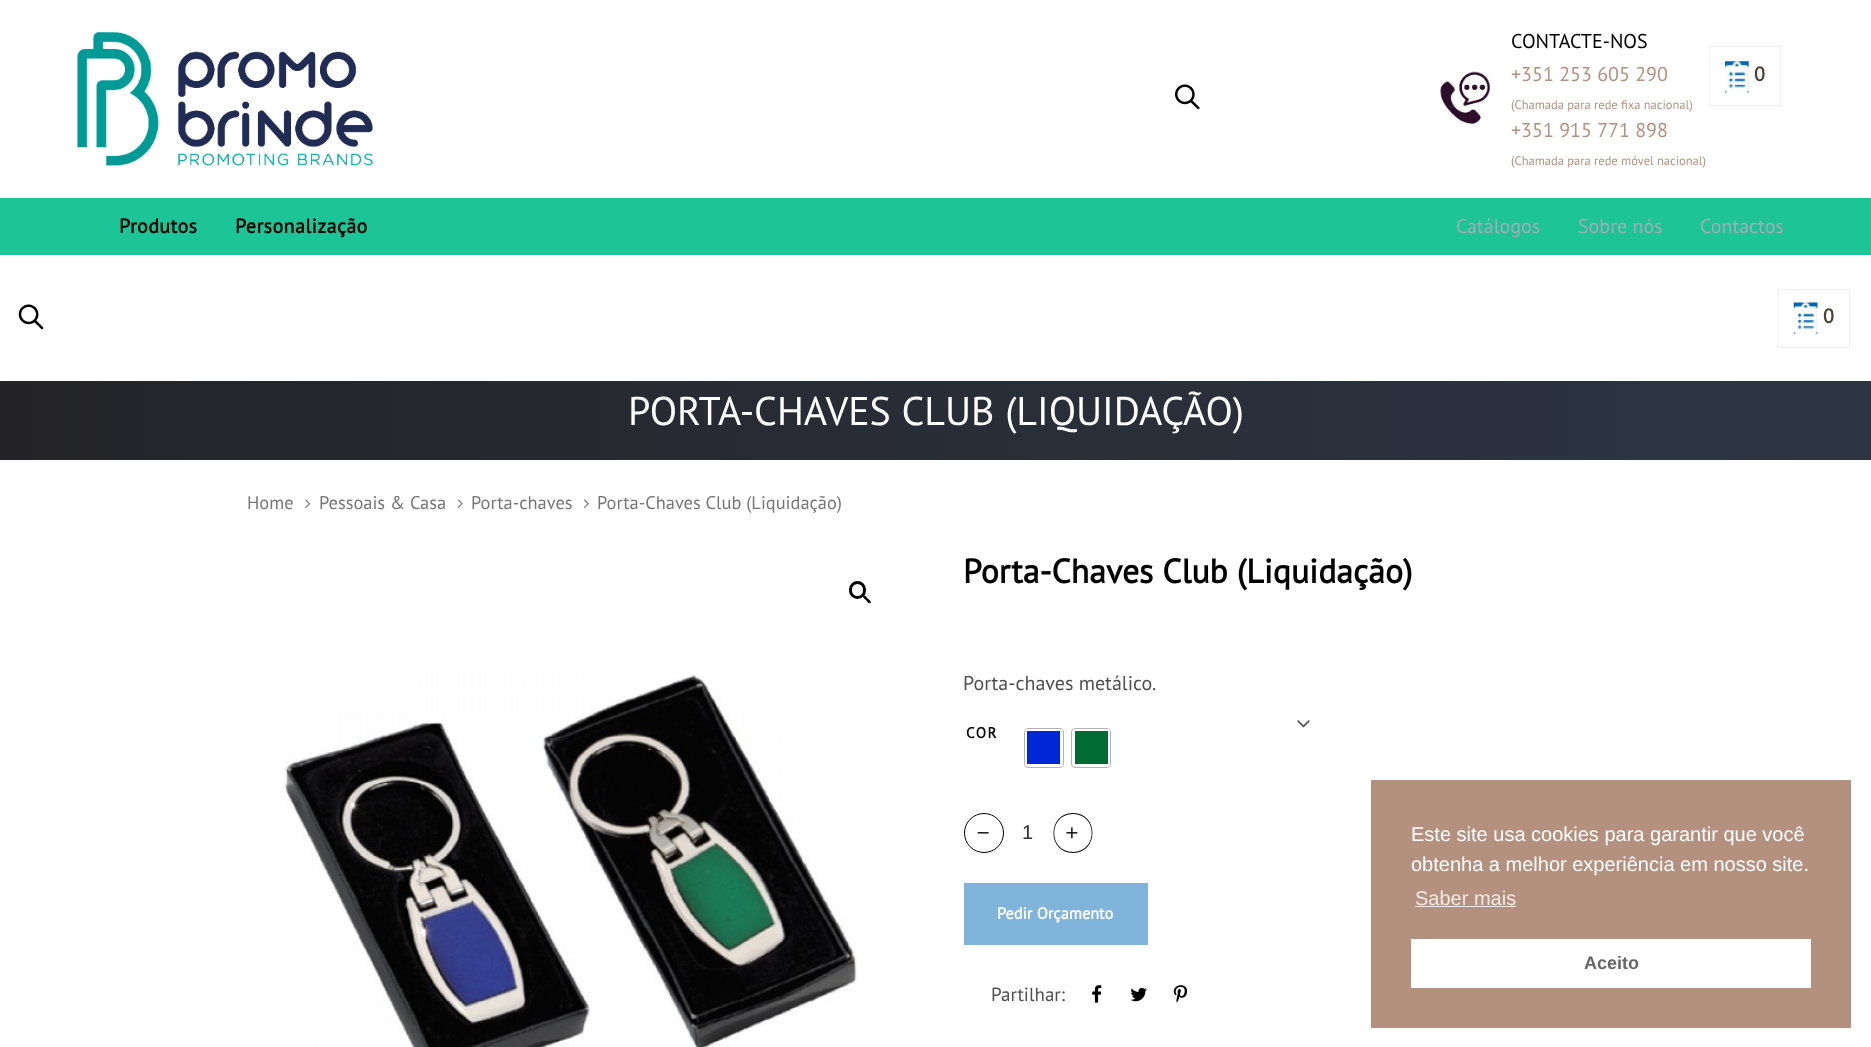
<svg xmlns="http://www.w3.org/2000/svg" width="1871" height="1047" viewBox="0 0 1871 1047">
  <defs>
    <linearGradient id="g1" gradientUnits="userSpaceOnUse" x1="0" y1="421" x2="1871" y2="421"><stop offset="0" stop-color="rgb(36,36,40)"/><stop offset="1" stop-color="rgb(45,53,68)"/></linearGradient>
  </defs>
  <rect width="100%" height="100%" fill="rgb(255,255,255)"/>
  <image x="77" y="31" width="296" height="135" href="pic1.png"/>
  <image x="1175" y="84" width="25" height="26" href="pic2.png"/>
  <image x="1440" y="71" width="50" height="53" href="pic3.png"/>
  <text x="1511" y="48" font-family="PT Sans" font-size="20" fill="rgb(0,0,0)">CONTACTE-NOS</text>
  <text x="1511" y="81" font-family="PT Sans" font-size="20" fill="rgb(180,145,126)">+351 253 605 290</text>
  <text x="1511" y="109" font-family="PT Sans" font-size="12.5" fill="rgb(180,145,126)">(Chamada para rede fixa nacional)</text>
  <text x="1511" y="137" font-family="PT Sans" font-size="20" fill="rgb(180,145,126)">+351 915 771 898</text>
  <text x="1511" y="165" font-family="PT Sans" font-size="12.5" fill="rgb(180,145,126)">(Chamada para rede móvel nacional)</text>
  <rect x="1709.5" y="46.5" width="71" height="59" fill="none" stroke="rgb(239,239,239)"/>
  <image x="1725" y="61" width="24" height="32" href="pic4.png"/>
  <text x="1754" y="81" font-family="PT Sans" font-size="20" font-weight="bold" fill="rgb(79,65,48)">0</text>
  <rect x="0" y="198" width="1871" height="57" fill="rgb(29,196,151)"/>
  <g font-family="PT Sans" font-size="20" font-weight="bold" letter-spacing="0.4" fill="rgb(0,0,0)">
    <text x="119" y="233">Produtos</text>
    <text x="235" y="233">Personalização</text>
  </g>
  <g font-family="PT Sans" font-size="20" fill="rgb(167,169,184)">
    <text x="1456" y="233">Catálogos</text>
    <text x="1578" y="233">Sobre nós</text>
    <text x="1700" y="233">Contactos</text>
  </g>
  <image x="18" y="304" width="26" height="26" href="pic5.png"/>
  <rect x="1778.5" y="289.5" width="71" height="58" fill="none" stroke="rgb(239,239,239)"/>
  <image x="1793" y="302" width="25" height="32" href="pic6.png"/>
  <text x="1823" y="323" font-family="PT Sans" font-size="20" font-weight="bold" fill="rgb(79,65,48)">0</text>
  <rect x="0" y="381" width="1871" height="79" fill="url(#g1)"/>
  <text x="628" y="425" font-family="PT Sans" font-size="40" fill="rgb(255,255,255)">PORTA-CHAVES CLUB (LIQUIDAÇÃO)</text>
  <text x="247" y="509" font-family="PT Sans" font-size="18.4" fill="rgb(118,118,118)">Home</text>
  <image x="305" y="499" width="6" height="9" href="pic7.png"/>
  <text x="319" y="509" font-family="PT Sans" font-size="18.4" fill="rgb(118,118,118)">Pessoais &amp; Casa</text>
  <image x="457" y="499" width="6" height="9" href="pic8.png"/>
  <text x="471" y="509" font-family="PT Sans" font-size="18.4" fill="rgb(118,118,118)">Porta-chaves</text>
  <image x="583" y="499" width="6" height="9" href="pic9.png"/>
  <text x="597" y="509" font-family="PT Sans" font-size="18.4" fill="rgb(118,118,118)">Porta-Chaves Club (Liquidação)</text>
  <rect x="850.5" y="582.5" width="14" height="15" rx="7" fill="none" stroke="rgb(0,0,0)" stroke-width="3"/>
  <path d="M863.5 596C864.5 594.5 867 597.5 867.5 598.5C868.5 599 872 601.5 870.5 603C869 604.5 866.5 601 866 600C865 599.5 862 597 863.5 596Z" fill="rgb(0,0,0)"/>
  <image x="284" y="673" width="575" height="374" href="pic10.png"/>
  <text x="963" y="583" font-family="PT Sans" font-size="33.75" font-weight="bold" fill="rgb(0,0,0)">Porta-Chaves Club (Liquidação)</text>
  <text x="963" y="690" font-family="PT Sans" font-size="20" fill="rgb(79,79,79)">Porta-chaves metálico.</text>
  <text x="966" y="738" font-family="PT Sans" font-size="15" font-weight="bold" letter-spacing="1.5" fill="rgb(0,0,0)">COR</text>
  <image x="1297" y="720" width="13" height="8" href="pic11.png"/>
  <rect x="1024.5" y="728.5" width="39" height="39" rx="3.5" fill="none" stroke="rgb(179,179,179)"/>
  <rect x="1025" y="729" width="38" height="37" rx="2.5" fill="rgb(255,255,255)"/>
  <rect x="1027" y="731" width="33" height="33" fill="rgb(0,39,213)"/>
  <rect x="1071.5" y="728.5" width="39" height="39" rx="3.5" fill="none" stroke="rgb(179,179,179)"/>
  <rect x="1073" y="729" width="37" height="37" rx="2.5" fill="rgb(255,255,255)"/>
  <rect x="1075" y="731" width="33" height="33" fill="rgb(0,108,51)"/>
  <circle cx="984" cy="833" r="19.5" fill="none" stroke="rgb(0,0,0)"/>
  <image x="977" y="832" width="12" height="2" href="pic12.png"/>
  <text x="1022" y="839" font-family="Liberation Sans" font-size="20" fill="rgb(51,51,51)">1</text>
  <path d="M1073 813C1099 813 1099 853 1073 853C1047 853 1047 813 1073 813ZM1073 814C1048 814 1048 852 1073 852C1098 852 1098 814 1073 814Z" fill="rgb(0,0,0)" fill-rule="evenodd"/>
  <image x="1066" y="827" width="12" height="12" href="pic13.png"/>
  <rect x="964" y="883" width="184" height="62" fill="rgb(128,179,218)"/>
  <text x="997" y="919" font-family="PT Sans" font-size="16.25" font-weight="bold" fill="rgb(255,255,255)">Pedir Orçamento</text>
  <text x="991" y="1001" font-family="PT Sans" font-size="19" fill="rgb(79,79,79)">Partilhar:</text>
  <image x="1092" y="985" width="10" height="18" href="pic14.png"/>
  <image x="1130" y="987" width="17" height="15" href="pic15.png"/>
  <image x="1173" y="985" width="15" height="18" href="pic16.png"/>
  <rect x="1371" y="780" width="480" height="248" fill="rgb(180,145,126)"/>
  <g font-family="Liberation Sans" font-size="20" fill="rgb(255,255,255)">
    <text>
      <tspan x="1411" y="841">Este site usa cookies para garantir que você</tspan>
      <tspan x="1411" y="871">obtenha a melhor experiência em nosso site.</tspan>
    </text>
  </g>
  <text x="1415" y="905" font-family="Liberation Sans" font-size="20" fill="rgb(240,233,229)">Saber mais</text>
  <rect x="1415" y="906" width="101" height="1" fill="rgb(240,233,229)"/>
  <rect x="1411" y="939" width="400" height="49" fill="rgb(255,255,255)"/>
  <text x="1584" y="969" font-family="Liberation Sans" font-size="18" font-weight="bold" fill="rgb(102,102,102)">Aceito</text>
</svg>
